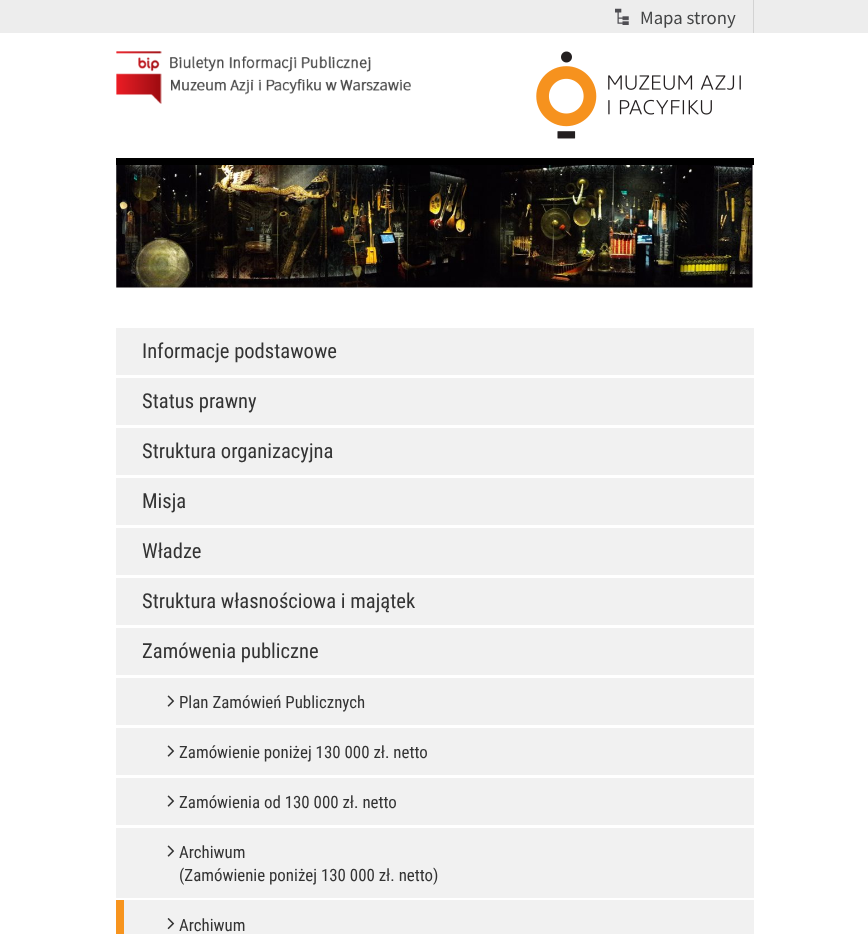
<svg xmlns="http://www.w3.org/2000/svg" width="868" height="934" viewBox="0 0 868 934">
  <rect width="100%" height="100%" fill="rgb(255,255,255)"/>
  <rect x="0" y="0" width="868" height="33" fill="rgb(237,237,237)"/>
  <image x="615" y="8" width="14" height="17" href="pic1.png"/>
  <rect x="753" y="0" width="1" height="33" fill="rgb(211,211,211)"/>
  <text x="640" y="24" font-family="Source Sans Pro" font-size="18.75" fill="rgb(67,68,69)">Mapa strony</text>
  <image x="116" y="51" width="295" height="53" href="pic2.png"/>
  <image x="536" y="51" width="205" height="88" href="pic3.png"/>
  <rect x="116" y="158" width="638" height="7" fill="rgb(0,0,0)"/>
  <image x="116" y="165" width="637" height="123" href="pic4.png"/>
  <rect x="116" y="328" width="638" height="570" fill="rgb(241,241,241)"/>
  <text x="142" y="358" font-family="Roboto Condensed" font-size="20.6" fill="rgb(51,51,51)">Informacje podstawowe</text>
  <rect x="116" y="375" width="638" height="3" fill="rgb(255,255,255)"/>
  <text x="142" y="408" font-family="Roboto Condensed" font-size="20.6" fill="rgb(51,51,51)">Status prawny</text>
  <rect x="116" y="425" width="638" height="3" fill="rgb(255,255,255)"/>
  <text x="142" y="458" font-family="Roboto Condensed" font-size="20.6" fill="rgb(51,51,51)">Struktura organizacyjna</text>
  <rect x="116" y="475" width="638" height="3" fill="rgb(255,255,255)"/>
  <text x="142" y="508" font-family="Roboto Condensed" font-size="20.6" fill="rgb(51,51,51)">Misja</text>
  <rect x="116" y="525" width="638" height="3" fill="rgb(255,255,255)"/>
  <text x="142" y="558" font-family="Roboto Condensed" font-size="20.6" fill="rgb(51,51,51)">Władze</text>
  <rect x="116" y="575" width="638" height="3" fill="rgb(255,255,255)"/>
  <text x="142" y="608" font-family="Roboto Condensed" font-size="20.6" fill="rgb(51,51,51)">Struktura własnościowa i majątek</text>
  <rect x="116" y="625" width="638" height="3" fill="rgb(255,255,255)"/>
  <text x="142" y="658" font-family="Roboto Condensed" font-size="20.6" fill="rgb(51,51,51)">Zamówenia publiczne</text>
  <rect x="116" y="675" width="638" height="3" fill="rgb(255,255,255)"/>
  <image x="167" y="695" width="8" height="12" href="pic5.png"/>
  <text x="179" y="708" font-family="Roboto Condensed" font-size="16.9" fill="rgb(51,51,51)">Plan Zamówień Publicznych</text>
  <rect x="116" y="725" width="638" height="3" fill="rgb(255,255,255)"/>
  <image x="167" y="745" width="8" height="12" href="pic5.png"/>
  <text x="179" y="758" font-family="Roboto Condensed" font-size="16.9" fill="rgb(51,51,51)">Zamówienie poniżej 130 000 zł. netto</text>
  <rect x="116" y="775" width="638" height="3" fill="rgb(255,255,255)"/>
  <image x="167" y="795" width="8" height="12" href="pic5.png"/>
  <text x="179" y="808" font-family="Roboto Condensed" font-size="16.9" fill="rgb(51,51,51)">Zamówienia od 130 000 zł. netto</text>
  <rect x="116" y="825" width="638" height="3" fill="rgb(255,255,255)"/>
  <image x="167" y="845" width="8" height="12" href="pic5.png"/>
  <g font-family="Roboto Condensed" font-size="16.9" fill="rgb(51,51,51)">
    <text>
      <tspan x="179" y="858">Archiwum</tspan>
      <tspan x="179" y="881">(Zamówienie poniżej 130 000 zł. netto)</tspan>
    </text>
  </g>
  <rect x="124" y="900" width="630" height="34" fill="rgb(241,241,241)"/>
  <rect x="116" y="900" width="8" height="34" fill="rgb(247,148,30)"/>
  <image x="167" y="918" width="8" height="12" href="pic6.png"/>
  <text x="179" y="931" font-family="Roboto Condensed" font-size="16.9" fill="rgb(51,51,51)">Archiwum</text>
</svg>
